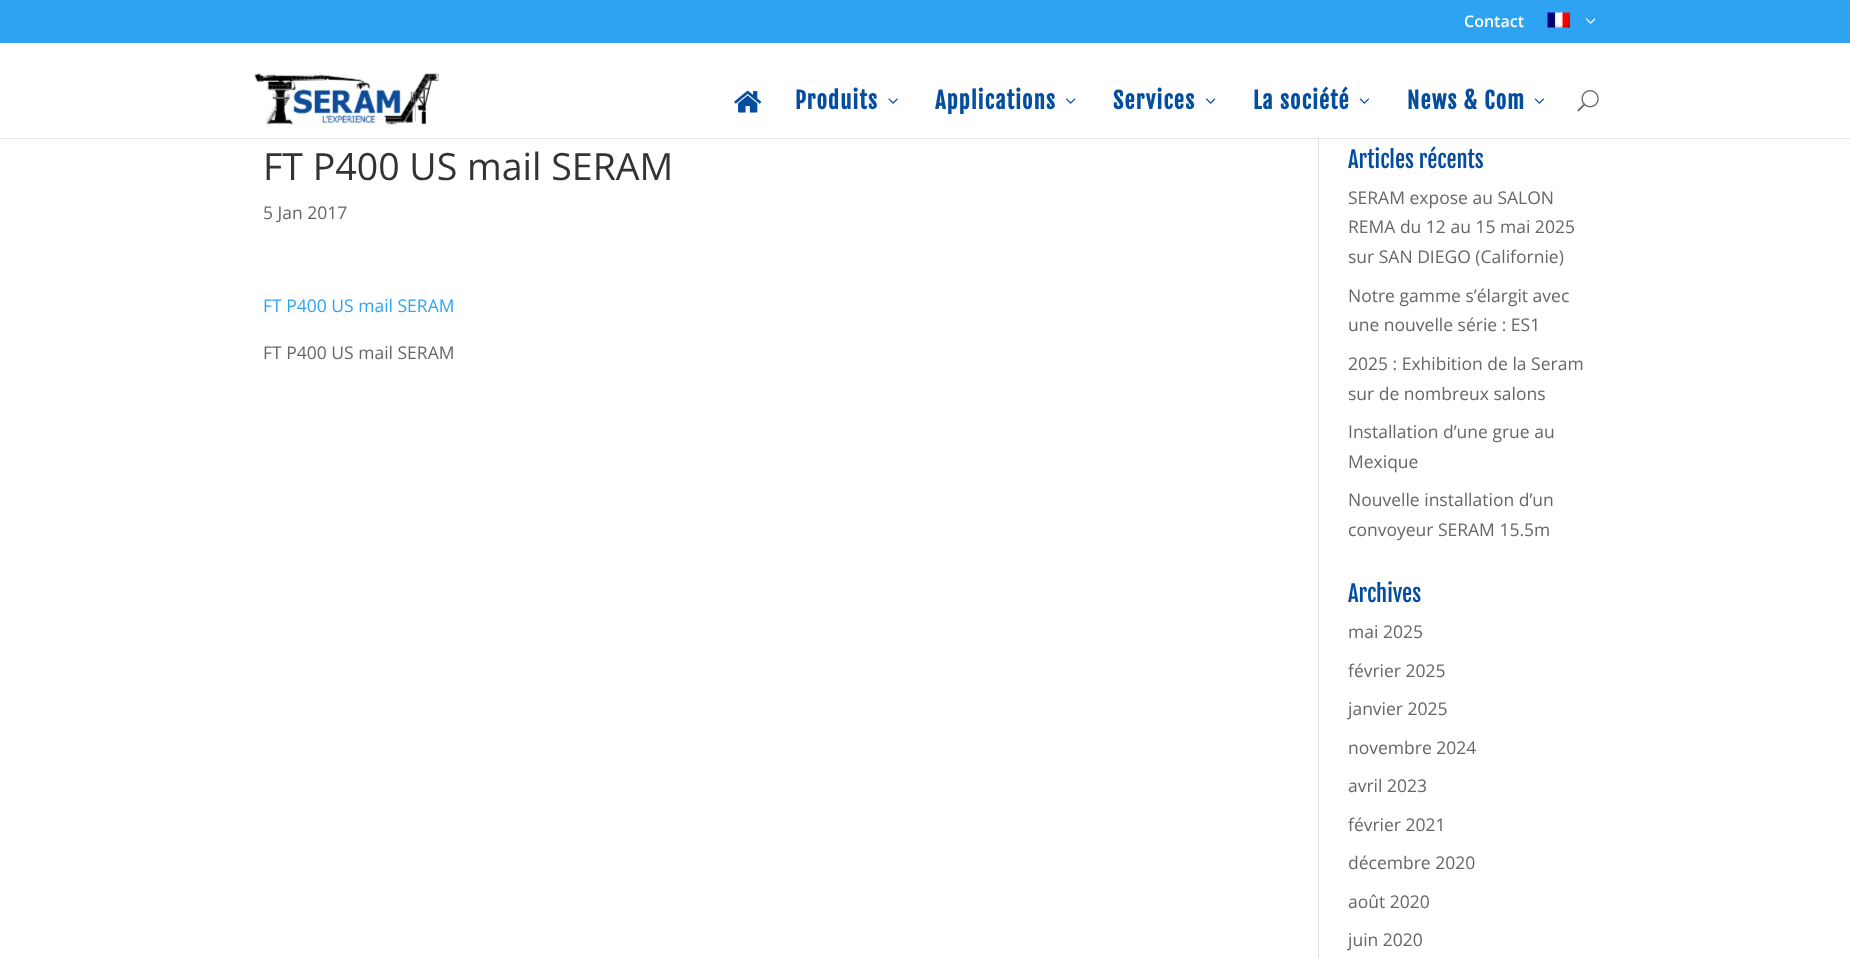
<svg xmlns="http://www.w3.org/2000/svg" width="1850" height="958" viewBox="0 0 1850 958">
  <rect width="100%" height="100%" fill="rgb(255,255,255)"/>
  <rect x="0" y="138" width="1850" height="1" fill="rgb(230,230,230)"/>
  <rect x="0" y="0" width="1850" height="43" fill="rgb(46,163,242)"/>
  <text x="1464" y="27" font-family="Open Sans" font-size="16" font-weight="600" fill="rgb(255,255,255)">Contact</text>
  <image x="1547" y="12" width="23" height="16" href="pic1.png"/>
  <image x="1586" y="18" width="10" height="6" href="pic2.png"/>
  <image x="254" y="73" width="185" height="52" href="pic3.png"/>
  <image x="734" y="91" width="28" height="22" href="pic4.png"/>
  <text x="795" y="109" font-family="Fjalla One" font-size="22.5" font-weight="bold" letter-spacing="1.25" fill="rgb(5,78,159)">Produits</text>
  <image x="888" y="98" width="10" height="6" href="pic5.png"/>
  <text x="935" y="109" font-family="Fjalla One" font-size="22.5" font-weight="bold" letter-spacing="1.25" fill="rgb(5,78,159)">Applications</text>
  <image x="1066" y="98" width="10" height="6" href="pic6.png"/>
  <text x="1113" y="109" font-family="Fjalla One" font-size="22.5" font-weight="bold" letter-spacing="1.25" fill="rgb(5,78,159)">Services</text>
  <image x="1206" y="98" width="10" height="6" href="pic6.png"/>
  <text x="1253" y="109" font-family="Fjalla One" font-size="22.5" font-weight="bold" letter-spacing="1.25" fill="rgb(5,78,159)">La société</text>
  <image x="1359" y="98" width="10" height="6" href="pic7.png"/>
  <text x="1407" y="109" font-family="Fjalla One" font-size="22.5" font-weight="bold" letter-spacing="1.25" fill="rgb(5,78,159)">News &amp; Com</text>
  <image x="1534" y="98" width="10" height="6" href="pic7.png"/>
  <image x="1577" y="90" width="22" height="22" href="pic8.png"/>
  <rect x="1318" y="139" width="1" height="819" fill="rgb(226,226,226)"/>
  <rect x="1318" y="138" width="1" height="1" fill="rgb(203,203,203)"/>
  <text x="263" y="180" font-family="Open Sans" font-size="37.5" fill="rgb(51,51,51)">FT P400 US mail SERAM</text>
  <text x="263" y="219" font-family="Open Sans" font-size="17.5" fill="rgb(102,102,102)">5 Jan 2017</text>
  <text x="263" y="312" font-family="Open Sans" font-size="17.5" fill="rgb(46,163,242)">FT P400 US mail SERAM</text>
  <text x="263" y="359" font-family="Open Sans" font-size="17.5" fill="rgb(102,102,102)">FT P400 US mail SERAM</text>
  <text x="1348" y="168" font-family="Fjalla One" font-size="22.5" fill="rgb(5,78,159)">Articles récents</text>
  <g font-family="Open Sans" font-size="17.5" fill="rgb(102,102,102)">
    <text>
      <tspan x="1348" y="204">SERAM expose au SALON</tspan>
      <tspan x="1348" y="233">REMA du 12 au 15 mai 2025</tspan>
      <tspan x="1348" y="263">sur SAN DIEGO (Californie)</tspan>
    </text>
    <text>
      <tspan x="1348" y="302">Notre gamme s’élargit avec</tspan>
      <tspan x="1348" y="331">une nouvelle série : ES1</tspan>
    </text>
    <text>
      <tspan x="1348" y="370">2025 : Exhibition de la Seram</tspan>
      <tspan x="1348" y="400">sur de nombreux salons</tspan>
    </text>
    <text>
      <tspan x="1348" y="438">Installation d’une grue au</tspan>
      <tspan x="1348" y="468">Mexique</tspan>
    </text>
    <text>
      <tspan x="1348" y="506">Nouvelle installation d’un</tspan>
      <tspan x="1348" y="536">convoyeur SERAM 15.5m</tspan>
    </text>
  </g>
  <text x="1348" y="602" font-family="Fjalla One" font-size="22.5" fill="rgb(5,78,159)">Archives</text>
  <g font-family="Open Sans" font-size="17.5" fill="rgb(102,102,102)">
    <text x="1348" y="638">mai 2025</text>
    <text x="1348" y="677">février 2025</text>
    <text x="1348" y="715">janvier 2025</text>
    <text x="1348" y="754">novembre 2024</text>
    <text x="1348" y="792">avril 2023</text>
    <text x="1348" y="831">février 2021</text>
    <text x="1348" y="869">décembre 2020</text>
    <text x="1348" y="908">août 2020</text>
    <text x="1348" y="946">juin 2020</text>
  </g>
</svg>
